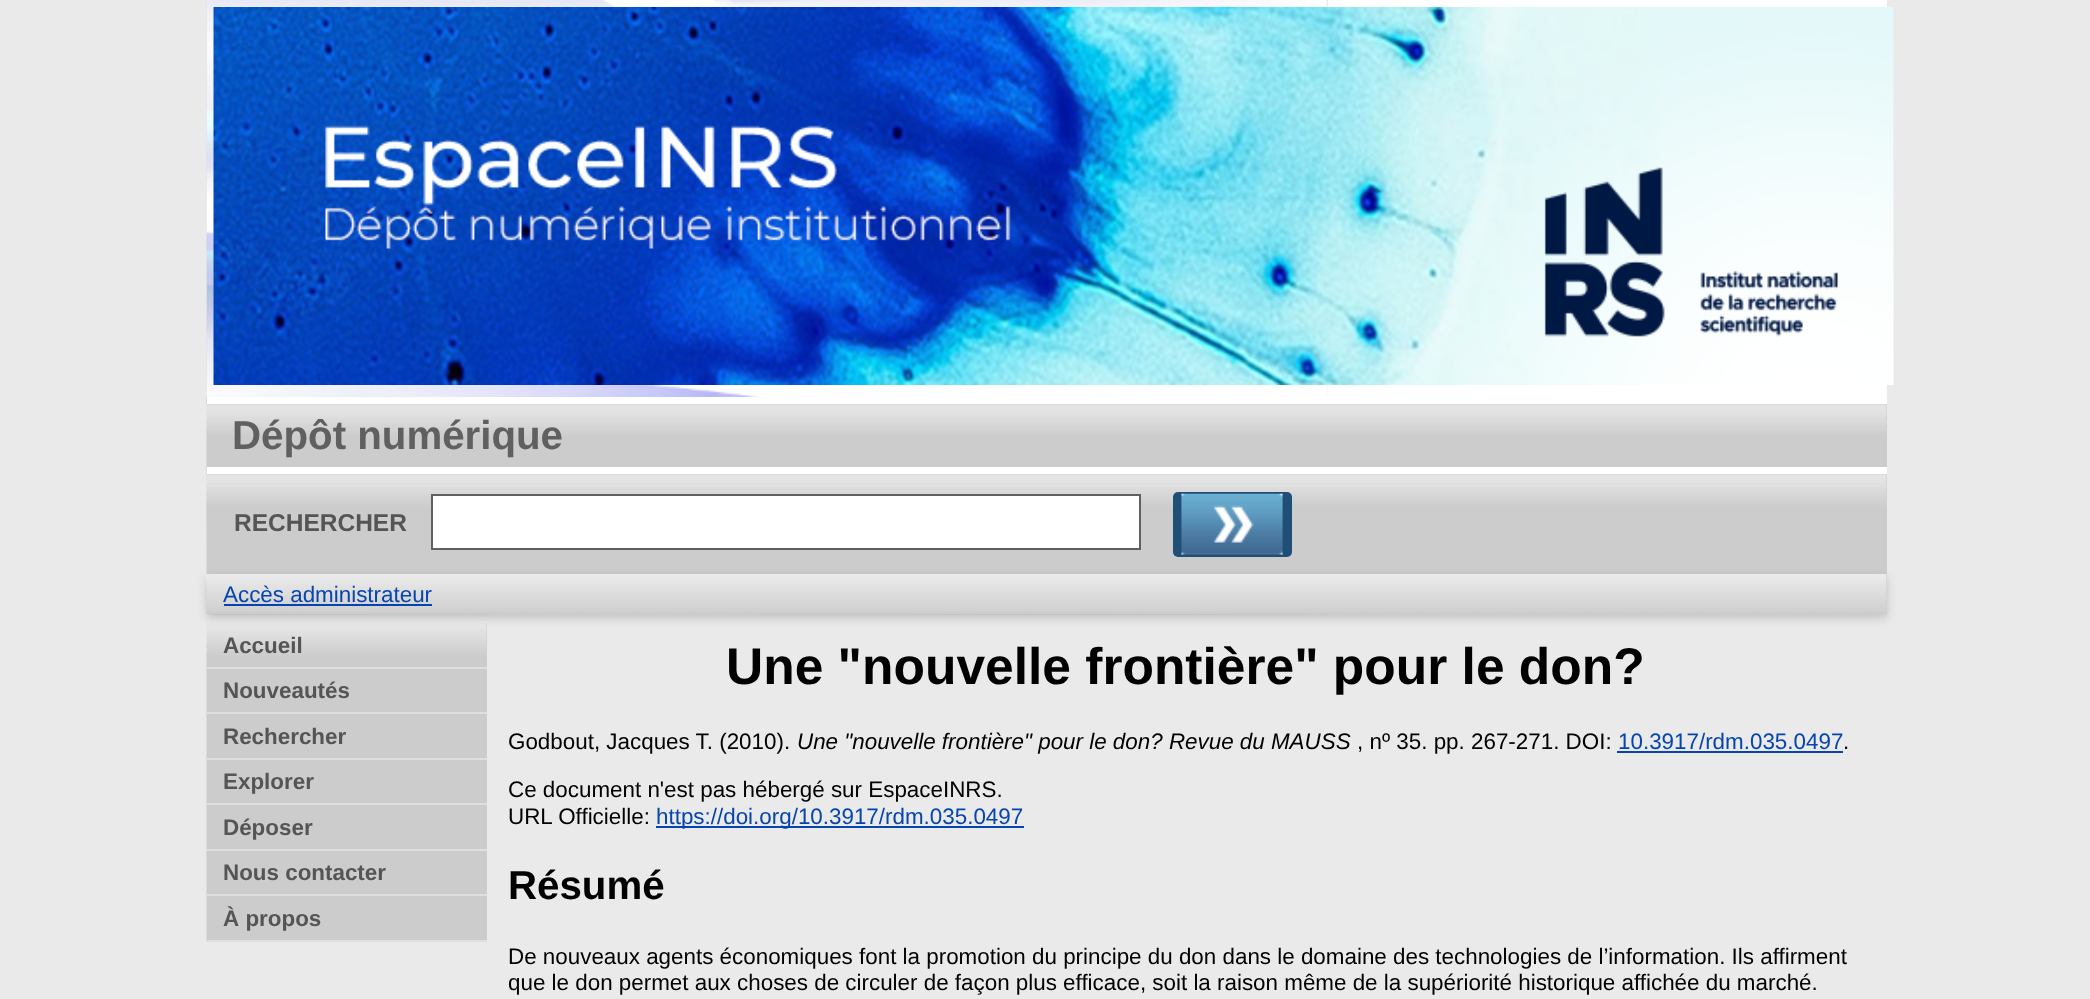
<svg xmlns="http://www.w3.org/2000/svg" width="2090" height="999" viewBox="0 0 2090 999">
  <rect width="100%" height="100%" fill="rgb(234,234,234)"/>
  <rect x="207" y="0" width="1680" height="397" fill="rgb(255,255,255)"/>
  <image x="206" y="0" width="1122" height="615" href="pic1.png"/>
  <image x="213" y="7" width="1681" height="378" href="pic2.png"/>
  <rect x="1886" y="404" width="1" height="63" fill="rgb(204,204,204)"/>
  <image x="206" y="397" width="1681" height="71" href="pic3.png"/>
  <rect x="207" y="397" width="1680" height="7" fill="rgb(255,255,255)"/>
  <text x="232" y="449" font-family="Liberation Sans" font-size="40.25" font-weight="bold" fill="rgb(96,96,96)">Dépôt numérique</text>
  <rect x="1886" y="474" width="1" height="100" fill="rgb(204,204,204)"/>
  <image x="206" y="467" width="1681" height="107" href="pic4.png"/>
  <rect x="207" y="467" width="1680" height="7" fill="rgb(255,255,255)"/>
  <text x="234" y="531" font-family="Liberation Sans" font-size="24.5" font-weight="bold" fill="rgb(85,85,85)">RECHERCHER</text>
  <rect x="432" y="495" width="708" height="54" fill="rgb(255,255,255)" stroke="rgb(96,96,96)" stroke-width="2"/>
  <rect x="1173" y="492" width="119" height="65" rx="5" fill="rgb(31,79,118)"/>
  <image x="1181" y="493" width="102" height="62" href="pic5.png"/>
  <rect x="207" y="578" width="1680" height="40" fill="rgba(100,100,100,0.3)" filter="blur(5px)"/>
  <rect x="207" y="574" width="1680" height="40" fill="rgb(204,204,204)"/>
  <image x="206" y="574" width="1681" height="38" href="pic6.png"/>
  <text x="223" y="602" font-family="Liberation Sans" font-size="22.4" fill="rgb(6,69,173)">Accès administrateur</text>
  <rect x="224" y="604" width="208" height="2" fill="rgb(6,69,173)"/>
  <rect x="486" y="623" width="1" height="317" fill="rgb(204,204,204)"/>
  <image x="206" y="623" width="281" height="319" href="pic7.png"/>
  <rect x="207" y="667" width="280" height="2" fill="rgb(223,223,223)"/>
  <text x="223" y="653" font-family="Liberation Sans" font-size="22.4" font-weight="bold" fill="rgb(85,85,85)">Accueil</text>
  <rect x="207" y="712" width="280" height="2" fill="rgb(223,223,223)"/>
  <text x="223" y="698" font-family="Liberation Sans" font-size="22.4" font-weight="bold" fill="rgb(85,85,85)">Nouveautés</text>
  <rect x="207" y="758" width="280" height="2" fill="rgb(223,223,223)"/>
  <text x="223" y="744" font-family="Liberation Sans" font-size="22.4" font-weight="bold" fill="rgb(85,85,85)">Rechercher</text>
  <rect x="207" y="803" width="280" height="2" fill="rgb(223,223,223)"/>
  <text x="223" y="789" font-family="Liberation Sans" font-size="22.4" font-weight="bold" fill="rgb(85,85,85)">Explorer</text>
  <rect x="207" y="849" width="280" height="2" fill="rgb(223,223,223)"/>
  <text x="223" y="835" font-family="Liberation Sans" font-size="22.4" font-weight="bold" fill="rgb(85,85,85)">Déposer</text>
  <rect x="207" y="894" width="280" height="2" fill="rgb(223,223,223)"/>
  <text x="223" y="880" font-family="Liberation Sans" font-size="22.4" font-weight="bold" fill="rgb(85,85,85)">Nous contacter</text>
  <rect x="207" y="940" width="280" height="2" fill="rgb(223,223,223)"/>
  <text x="223" y="926" font-family="Liberation Sans" font-size="22.4" font-weight="bold" fill="rgb(85,85,85)">À propos</text>
  <text x="726" y="684" font-family="Liberation Sans" font-size="51.5" font-weight="bold" fill="rgb(0,0,0)">Une "nouvelle frontière" pour le don?</text>
  <text x="508" y="749" font-family="Liberation Sans" font-size="22.4" fill="rgb(0,0,0)">Godbout, Jacques T. (2010).</text>
  <text x="797" y="749" font-family="Liberation Sans" font-size="22.4" font-style="italic" fill="rgb(0,0,0)">Une "nouvelle frontière" pour le don? Revue du MAUSS</text>
  <text x="1357" y="749" font-family="Liberation Sans" font-size="22.4" fill="rgb(0,0,0)">, nº 35. pp. 267-271. DOI:</text>
  <text x="1618" y="749" font-family="Liberation Sans" font-size="22.4" fill="rgb(6,69,173)">10.3917/rdm.035.0497</text>
  <rect x="1617" y="751" width="226" height="2" fill="rgb(6,69,173)"/>
  <g font-family="Liberation Sans" font-size="22.4" fill="rgb(0,0,0)">
    <text x="1843" y="749">.</text>
    <text>
      <tspan x="508" y="797">Ce document n'est pas hébergé sur EspaceINRS.</tspan>
      <tspan x="508" y="824">URL Officielle:</tspan>
    </text>
  </g>
  <rect x="656" y="826" width="368" height="2" fill="rgb(6,69,173)"/>
  <text x="656" y="824" font-family="Liberation Sans" font-size="22.4" fill="rgb(6,69,173)">https://doi.org/10.3917/rdm.035.0497</text>
  <text x="508" y="899" font-family="Liberation Sans" font-size="40.25" font-weight="bold" fill="rgb(0,0,0)">Résumé</text>
  <g font-family="Liberation Sans" font-size="22.4" fill="rgb(0,0,0)">
    <text>
      <tspan x="508" y="964">De nouveaux agents économiques font la promotion du principe du don dans le domaine des technologies de l’information. Ils affirment</tspan>
      <tspan x="508" y="990">que le don permet aux choses de circuler de façon plus efficace, soit la raison même de la supériorité historique affichée du marché.</tspan>
    </text>
  </g>
</svg>
